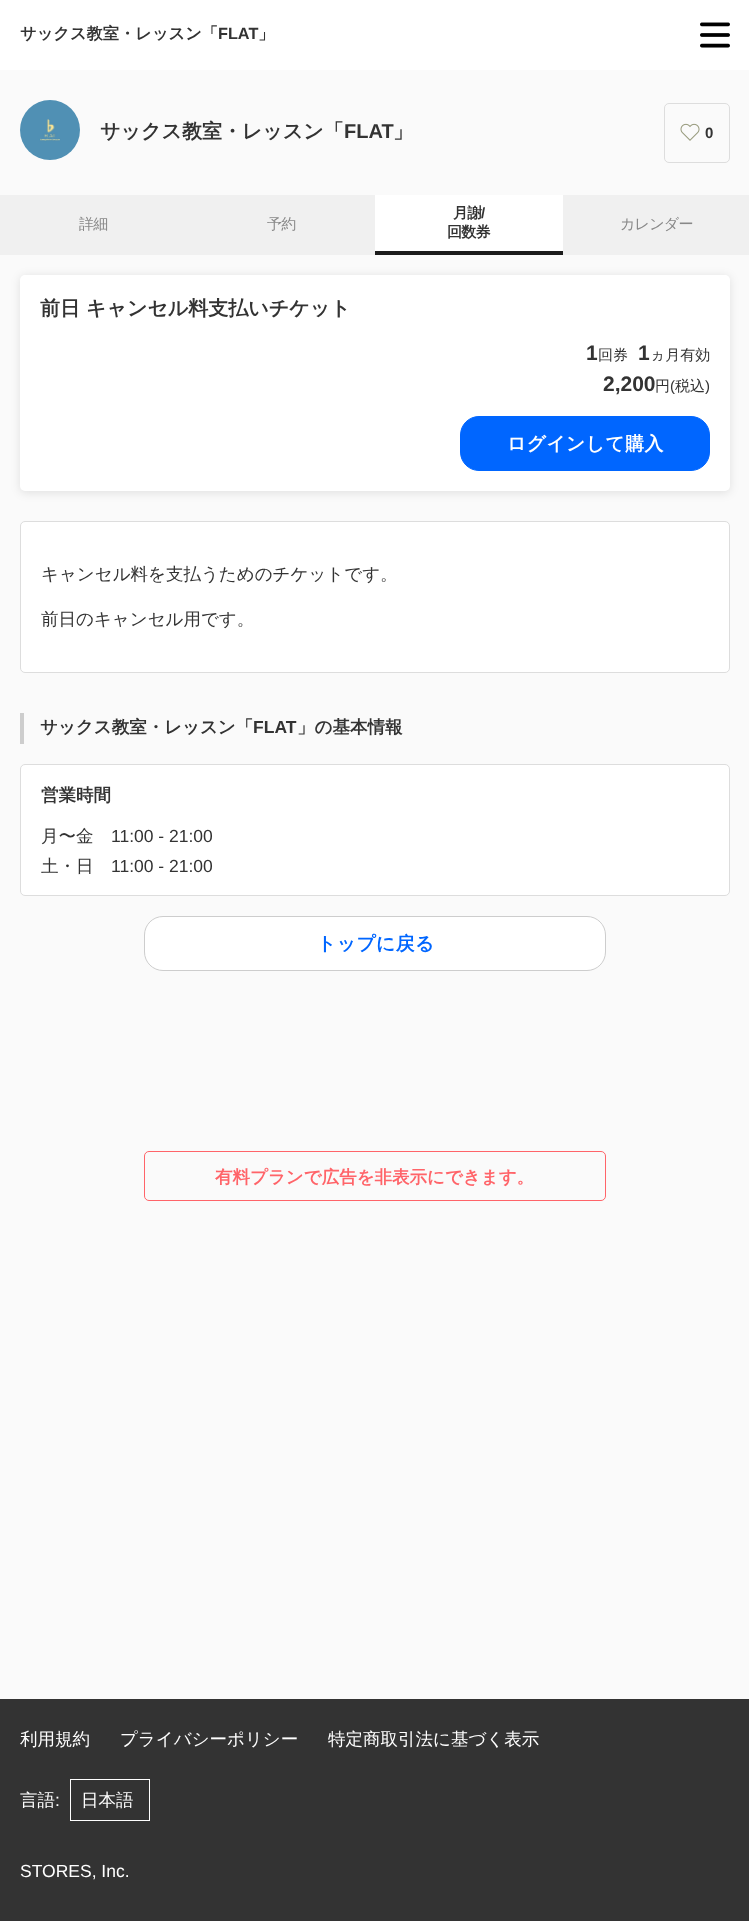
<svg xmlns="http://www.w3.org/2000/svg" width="749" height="1921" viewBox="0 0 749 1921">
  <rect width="100%" height="100%" fill="rgb(250,250,250)"/>
  <rect x="0" y="0" width="749" height="70" fill="rgb(255,255,255)"/>
  <text x="20" y="39" font-family="WenQuanYi Zen Hei" font-size="16.25" font-weight="bold" fill="rgb(51,51,51)">サックス教室・レッスン「</text>
  <text x="218" y="39" font-family="Liberation Sans" font-size="16.25" font-weight="bold" fill="rgb(51,51,51)">FLAT</text>
  <text x="258" y="39" font-family="WenQuanYi Zen Hei" font-size="16.25" font-weight="bold" fill="rgb(51,51,51)">」</text>
  <image x="700" y="22" width="30" height="26" href="pic1.png"/>
  <image x="20" y="100" width="60" height="60" href="pic2.png"/>
  <text x="100" y="138" font-family="WenQuanYi Zen Hei" font-size="20" font-weight="bold" fill="rgb(51,51,51)">サックス教室・レッスン「</text>
  <text x="344" y="138" font-family="Liberation Sans" font-size="20" font-weight="bold" fill="rgb(51,51,51)">FLAT</text>
  <text x="393" y="138" font-family="WenQuanYi Zen Hei" font-size="20" font-weight="bold" fill="rgb(51,51,51)">」</text>
  <rect x="664.5" y="103.5" width="65" height="59" rx="4.5" fill="none" stroke="rgb(221,221,221)"/>
  <image x="680" y="123" width="20" height="18" href="pic3.png"/>
  <text x="705" y="138" font-family="Liberation Sans" font-size="15" font-weight="bold" fill="rgb(51,51,51)">0</text>
  <rect x="375" y="195" width="188" height="56" fill="rgb(255,255,255)"/>
  <rect x="0" y="195" width="375" height="60" fill="rgb(240,240,240)"/>
  <g font-family="WenQuanYi Zen Hei" font-size="15" font-weight="500" letter-spacing="-0.75" fill="rgb(136,136,136)">
    <text x="79" y="229">詳細</text>
    <text x="267" y="229">予約</text>
  </g>
  <rect x="375" y="251" width="188" height="4" fill="rgb(27,27,27)"/>
  <text x="453" y="218" font-family="WenQuanYi Zen Hei" font-size="15" font-weight="bold" letter-spacing="-0.75" fill="rgb(51,51,51)">月謝</text>
  <text x="481" y="218" font-family="Liberation Sans" font-size="15" font-weight="bold" letter-spacing="-0.75" fill="rgb(51,51,51)">/</text>
  <text x="447" y="237" font-family="WenQuanYi Zen Hei" font-size="15" font-weight="bold" letter-spacing="-0.75" fill="rgb(51,51,51)">回数券</text>
  <rect x="563" y="195" width="186" height="60" fill="rgb(240,240,240)"/>
  <text x="620" y="229" font-family="WenQuanYi Zen Hei" font-size="15" font-weight="500" letter-spacing="-0.75" fill="rgb(136,136,136)">カレンダー</text>
  <rect x="20" y="276" width="710" height="217" rx="5" fill="rgba(0,0,0,0.1)" filter="blur(5px)"/>
  <rect x="20" y="275" width="710" height="216" rx="5" fill="rgb(255,255,255)"/>
  <text x="40" y="315" font-family="WenQuanYi Zen Hei" font-size="20" font-weight="bold" fill="rgb(51,51,51)">前日 キャンセル料支払いチケット</text>
  <text x="586" y="360" font-family="Liberation Sans" font-size="21" font-weight="bold" fill="rgb(51,51,51)">1</text>
  <text x="598" y="360" font-family="WenQuanYi Zen Hei" font-size="15" font-weight="500" fill="rgb(51,51,51)">回券</text>
  <text x="638" y="360" font-family="Liberation Sans" font-size="21" font-weight="bold" fill="rgb(51,51,51)">1</text>
  <text x="650" y="360" font-family="WenQuanYi Zen Hei" font-size="15" font-weight="500" fill="rgb(51,51,51)">ヵ月有効</text>
  <text x="603" y="391" font-family="Liberation Sans" font-size="21" font-weight="bold" fill="rgb(51,51,51)">2,200</text>
  <text x="655" y="391" font-family="WenQuanYi Zen Hei" font-size="15" font-weight="500" fill="rgb(51,51,51)">円</text>
  <text x="670" y="391" font-family="Liberation Sans" font-size="15" fill="rgb(51,51,51)">(</text>
  <text x="675" y="391" font-family="WenQuanYi Zen Hei" font-size="15" font-weight="500" fill="rgb(51,51,51)">税込</text>
  <text x="705" y="391" font-family="Liberation Sans" font-size="15" fill="rgb(51,51,51)">)</text>
  <rect x="460.5" y="416.5" width="249" height="54" rx="18.5" fill="rgb(0,102,255)" stroke="rgb(0,102,255)"/>
  <text x="507" y="450" font-family="WenQuanYi Zen Hei" font-size="18.75" font-weight="bold" letter-spacing="0.5" fill="rgb(255,255,255)">ログインして購入</text>
  <rect x="20.5" y="521.5" width="709" height="151" rx="4.5" fill="rgb(255,255,255)" stroke="rgb(221,221,221)"/>
  <g font-family="WenQuanYi Zen Hei" font-size="17.5" font-weight="500" fill="rgb(51,51,51)">
    <text x="41" y="580">キャンセル料を支払うためのチケットです。</text>
    <text x="41" y="625">前日のキャンセル用です。</text>
  </g>
  <rect x="20" y="713" width="4" height="31" fill="rgb(205,205,205)"/>
  <text x="40" y="733" font-family="WenQuanYi Zen Hei" font-size="17.5" font-weight="bold" fill="rgb(51,51,51)">サックス教室・レッスン「</text>
  <text x="253" y="733" font-family="Liberation Sans" font-size="17.5" font-weight="bold" fill="rgb(51,51,51)">FLAT</text>
  <text x="297" y="733" font-family="WenQuanYi Zen Hei" font-size="17.5" font-weight="bold" fill="rgb(51,51,51)">」の基本情報</text>
  <rect x="20.5" y="764.5" width="709" height="131" rx="4.5" fill="rgb(255,255,255)" stroke="rgb(221,221,221)"/>
  <text x="41" y="801" font-family="WenQuanYi Zen Hei" font-size="17.5" font-weight="bold" fill="rgb(51,51,51)">営業時間</text>
  <text x="41" y="842" font-family="WenQuanYi Zen Hei" font-size="17.5" font-weight="500" fill="rgb(51,51,51)">月〜金</text>
  <text x="111" y="842" font-family="Liberation Sans" font-size="17.5" fill="rgb(51,51,51)">11:00 - 21:00</text>
  <text x="41" y="872" font-family="WenQuanYi Zen Hei" font-size="17.5" font-weight="500" fill="rgb(51,51,51)">土・日</text>
  <text x="111" y="872" font-family="Liberation Sans" font-size="17.5" fill="rgb(51,51,51)">11:00 - 21:00</text>
  <rect x="144.5" y="916.5" width="461" height="54" rx="18.5" fill="rgb(255,255,255)" stroke="rgb(205,205,205)"/>
  <text x="317" y="950" font-family="WenQuanYi Zen Hei" font-size="18.75" font-weight="bold" letter-spacing="0.5" fill="rgb(0,102,255)">トップに戻る</text>
  <rect x="144.5" y="1151.5" width="461" height="49" rx="4.5" fill="none" stroke="rgb(255,100,105)"/>
  <text x="215" y="1183" font-family="WenQuanYi Zen Hei" font-size="17.5" font-weight="bold" fill="rgb(255,100,105)">有料プランで広告を非表示にできます。</text>
  <rect x="0" y="1699" width="749" height="222" fill="rgb(51,51,51)"/>
  <g font-family="WenQuanYi Zen Hei" font-size="17.5" font-weight="500" fill="rgb(255,255,255)">
    <text x="20" y="1745">利用規約</text>
    <text x="120" y="1745">プライバシーポリシー</text>
    <text x="328" y="1745">特定商取引法に基づく表示</text>
    <text x="20" y="1806">言語</text>
  </g>
  <text x="55" y="1806" font-family="Liberation Sans" font-size="17.5" fill="rgb(255,255,255)">:</text>
  <rect x="70.5" y="1779.5" width="79" height="41" fill="none" stroke="rgb(255,255,255)"/>
  <text x="81" y="1806" font-family="WenQuanYi Zen Hei" font-size="17.5" font-weight="500" fill="rgb(255,255,255)">日本語</text>
  <text x="20" y="1877" font-family="Liberation Sans" font-size="17.5" fill="rgb(255,255,255)">STORES, Inc.</text>
</svg>
